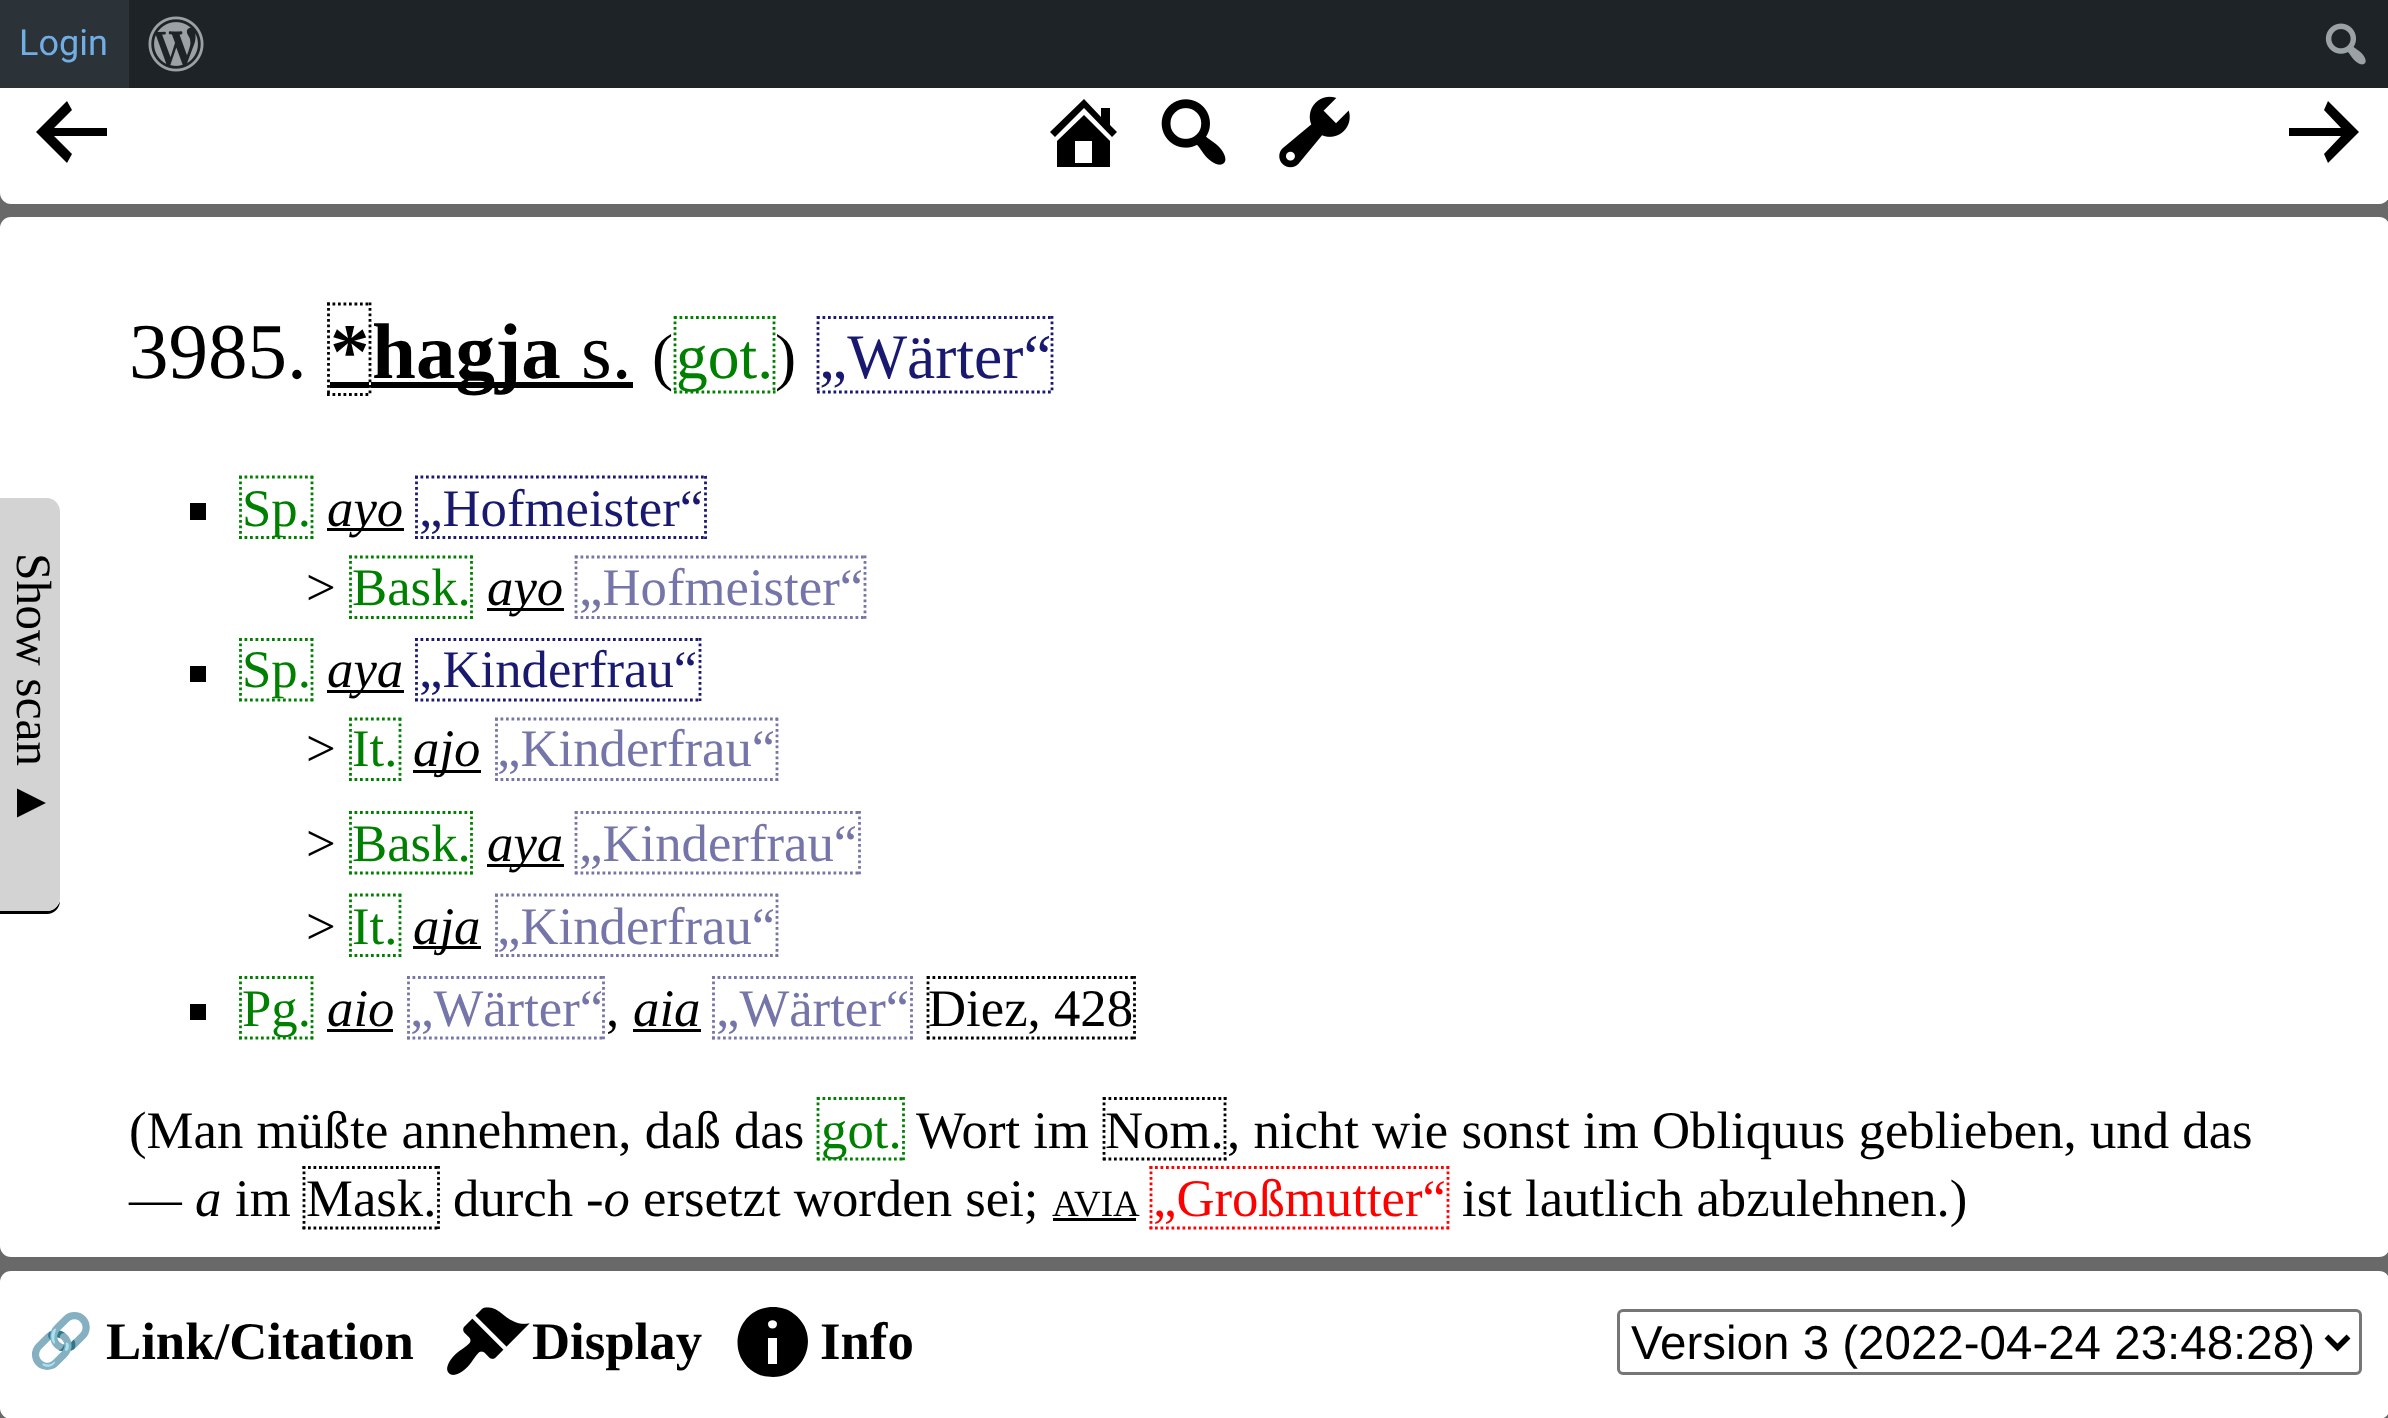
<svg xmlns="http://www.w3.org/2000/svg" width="2388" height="1418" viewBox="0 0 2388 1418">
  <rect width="100%" height="100%" fill="rgb(105,105,105)"/>
  <path d="M0 72H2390V193C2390 199 2385 204 2379 204H11C5 204 0 199 0 193Z" fill="rgb(255,255,255)"/>
  <rect x="129" y="0" width="2259" height="88" fill="rgb(29,35,39)"/>
  <rect x="0" y="0" width="129" height="88" fill="rgb(44,51,56)"/>
  <text x="19" y="55" font-family="Roboto" font-size="36" fill="rgb(114,174,230)">Login</text>
  <image x="148" y="16" width="56" height="56" href="pic1.png"/>
  <image x="2325" y="23" width="41" height="42" href="pic2.png"/>
  <path d="M107 128V136H54L72 154L67 163L36 132L67 101L72 110L54 128Z" fill="rgb(0,0,0)"/>
  <path d="M1110 125L1117 132L1112 137L1084 108L1055 137L1050 132L1084 99L1101 117V108H1110ZM1084 115L1110 141V167H1057V141ZM1092 163V141H1075V163Z" fill="rgb(0,0,0)"/>
  <image x="1161" y="99" width="65" height="66" href="pic3.png"/>
  <image x="1279" y="96" width="71" height="72" href="pic4.png"/>
  <path d="M2289 136V128H2341L2324 110L2328 101L2359 132L2328 163L2324 154L2341 136Z" fill="rgb(0,0,0)"/>
  <rect x="0" y="217" width="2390" height="1040" rx="11" fill="rgb(255,255,255)"/>
  <path d="M0 911V914H47C54 914 60 908 60 901C58 907 53 911 47 911Z" fill="rgb(0,0,0)"/>
  <path d="M60 512V897C60 905 54 911 47 911H0V498H47C54 498 60 504 60 512Z" fill="rgb(211,211,211)"/>
  <text x="17" y="553" transform="rotate(90 17 553)" font-family="Liberation Serif" font-size="49.5" fill="rgb(0,0,0)">Show scan ▲</text>
  <text x="129" y="378" font-family="Liberation Serif" font-size="79" fill="rgb(0,0,0)">3985.</text>
  <text x="330" y="378" font-family="Liberation Serif" font-size="79" font-weight="bold" fill="rgb(0,0,0)">*</text>
  <path d="M327 304H371" fill="none" stroke="rgb(0,0,0)" stroke-width="2.8" stroke-dasharray="2.75 2.75"/>
  <path d="M370 302.5V396" fill="none" stroke="rgb(0,0,0)" stroke-width="2.8" stroke-dasharray="2.75 2.75"/>
  <path d="M327 394.5H371" fill="none" stroke="rgb(0,0,0)" stroke-width="2.8" stroke-dasharray="2.75 2.75"/>
  <path d="M328.5 302.5V396" fill="none" stroke="rgb(0,0,0)" stroke-width="2.8" stroke-dasharray="2.75 2.75"/>
  <rect x="371" y="382" width="262" height="6" fill="rgb(0,0,0)"/>
  <text x="372" y="378" font-family="Liberation Serif" font-size="79" font-weight="bold" fill="rgb(0,0,0)">hagja</text>
  <rect x="330" y="382" width="39" height="6" fill="rgb(0,0,0)"/>
  <text x="581" y="378" font-family="Liberation Serif" font-size="79" fill="rgb(0,0,0)">s.</text>
  <text x="652" y="378" font-family="Liberation Serif" font-size="63.5" fill="rgb(0,0,0)">(</text>
  <path d="M674 317.5H775.5" fill="none" stroke="rgb(0,128,0)" stroke-width="2.8" stroke-dasharray="2.75 2.75"/>
  <path d="M774 316V393" fill="none" stroke="rgb(0,128,0)" stroke-width="2.8" stroke-dasharray="2.75 2.75"/>
  <path d="M674 392H775.5" fill="none" stroke="rgb(0,128,0)" stroke-width="2.8" stroke-dasharray="2.75 2.75"/>
  <path d="M675 316V393" fill="none" stroke="rgb(0,128,0)" stroke-width="2.8" stroke-dasharray="2.75 2.75"/>
  <text x="676" y="378" font-family="Liberation Serif" font-size="63.5" fill="rgb(0,128,0)">got.</text>
  <text x="775" y="378" font-family="Liberation Serif" font-size="63.5" fill="rgb(0,0,0)">)</text>
  <text x="819" y="378" font-family="Liberation Serif" font-size="63.5" fill="rgb(25,25,112)">„Wärter“</text>
  <path d="M817 317.5H1053" fill="none" stroke="rgb(25,25,112)" stroke-width="2.8" stroke-dasharray="2.75 2.75"/>
  <path d="M1052 316V393" fill="none" stroke="rgb(25,25,112)" stroke-width="2.8" stroke-dasharray="2.75 2.75"/>
  <path d="M817 392H1053" fill="none" stroke="rgb(25,25,112)" stroke-width="2.8" stroke-dasharray="2.75 2.75"/>
  <path d="M818 316V393" fill="none" stroke="rgb(25,25,112)" stroke-width="2.8" stroke-dasharray="2.75 2.75"/>
  <rect x="190" y="503" width="16" height="17" fill="rgb(0,0,0)"/>
  <path d="M239 477H313.5" fill="none" stroke="rgb(0,128,0)" stroke-width="2.8" stroke-dasharray="2.75 2.75"/>
  <path d="M312 476V539" fill="none" stroke="rgb(0,128,0)" stroke-width="2.8" stroke-dasharray="2.75 2.75"/>
  <path d="M239 537.5H313.5" fill="none" stroke="rgb(0,128,0)" stroke-width="2.8" stroke-dasharray="2.75 2.75"/>
  <text x="242" y="526" font-family="Liberation Serif" font-size="52.75" fill="rgb(0,128,0)">Sp.</text>
  <path d="M240.5 476V539" fill="none" stroke="rgb(0,128,0)" stroke-width="2.8" stroke-dasharray="2.75 2.75"/>
  <rect x="327" y="528" width="77" height="3" fill="rgb(0,0,0)"/>
  <text x="327" y="526" font-family="Liberation Serif" font-size="52.75" font-style="italic" fill="rgb(0,0,0)">ayo</text>
  <text x="419" y="526" font-family="Liberation Serif" font-size="52.75" fill="rgb(25,25,112)">„Hofmeister“</text>
  <path d="M415 477H707" fill="none" stroke="rgb(25,25,112)" stroke-width="2.8" stroke-dasharray="2.75 2.75"/>
  <path d="M705.5 476V539" fill="none" stroke="rgb(25,25,112)" stroke-width="2.8" stroke-dasharray="2.75 2.75"/>
  <path d="M415 537.5H707" fill="none" stroke="rgb(25,25,112)" stroke-width="2.8" stroke-dasharray="2.75 2.75"/>
  <path d="M416.5 476V539" fill="none" stroke="rgb(25,25,112)" stroke-width="2.8" stroke-dasharray="2.75 2.75"/>
  <text x="306" y="605" font-family="Liberation Serif" font-size="52.75" fill="rgb(0,0,0)">&gt;</text>
  <text x="352" y="605" font-family="Liberation Serif" font-size="52.75" fill="rgb(0,128,0)">Bask.</text>
  <path d="M349 557H473" fill="none" stroke="rgb(0,128,0)" stroke-width="2.8" stroke-dasharray="2.75 2.75"/>
  <path d="M471.5 555.5V619" fill="none" stroke="rgb(0,128,0)" stroke-width="2.8" stroke-dasharray="2.75 2.75"/>
  <path d="M349 617.5H473" fill="none" stroke="rgb(0,128,0)" stroke-width="2.8" stroke-dasharray="2.75 2.75"/>
  <path d="M350.5 555.5V619" fill="none" stroke="rgb(0,128,0)" stroke-width="2.8" stroke-dasharray="2.75 2.75"/>
  <rect x="487" y="608" width="77" height="3" fill="rgb(0,0,0)"/>
  <text x="487" y="605" font-family="Liberation Serif" font-size="52.75" font-style="italic" fill="rgb(0,0,0)">ayo</text>
  <text x="579" y="605" font-family="Liberation Serif" font-size="52.75" fill="rgb(117,117,169)">„Hofmeister“</text>
  <path d="M575 557H866" fill="none" stroke="rgb(117,117,169)" stroke-width="2.8" stroke-dasharray="2.75 2.75"/>
  <path d="M865 555.5V619" fill="none" stroke="rgb(117,117,169)" stroke-width="2.8" stroke-dasharray="2.75 2.75"/>
  <path d="M575 617.5H866" fill="none" stroke="rgb(117,117,169)" stroke-width="2.8" stroke-dasharray="2.75 2.75"/>
  <path d="M576 555.5V619" fill="none" stroke="rgb(117,117,169)" stroke-width="2.8" stroke-dasharray="2.75 2.75"/>
  <rect x="190" y="666" width="16" height="16" fill="rgb(0,0,0)"/>
  <path d="M239 639.5H313.5" fill="none" stroke="rgb(0,128,0)" stroke-width="2.8" stroke-dasharray="2.75 2.75"/>
  <path d="M312 638V701" fill="none" stroke="rgb(0,128,0)" stroke-width="2.8" stroke-dasharray="2.75 2.75"/>
  <path d="M239 700H313.5" fill="none" stroke="rgb(0,128,0)" stroke-width="2.8" stroke-dasharray="2.75 2.75"/>
  <text x="242" y="687" font-family="Liberation Serif" font-size="52.75" fill="rgb(0,128,0)">Sp.</text>
  <path d="M240.5 638V701" fill="none" stroke="rgb(0,128,0)" stroke-width="2.8" stroke-dasharray="2.75 2.75"/>
  <rect x="327" y="690" width="77" height="3" fill="rgb(0,0,0)"/>
  <text x="327" y="687" font-family="Liberation Serif" font-size="52.75" font-style="italic" fill="rgb(0,0,0)">aya</text>
  <text x="419" y="687" font-family="Liberation Serif" font-size="52.75" fill="rgb(25,25,112)">„Kinderfrau“</text>
  <path d="M415 639.5H701" fill="none" stroke="rgb(25,25,112)" stroke-width="2.8" stroke-dasharray="2.75 2.75"/>
  <path d="M700 638V701" fill="none" stroke="rgb(25,25,112)" stroke-width="2.8" stroke-dasharray="2.75 2.75"/>
  <path d="M415 700H701" fill="none" stroke="rgb(25,25,112)" stroke-width="2.8" stroke-dasharray="2.75 2.75"/>
  <path d="M416.5 638V701" fill="none" stroke="rgb(25,25,112)" stroke-width="2.8" stroke-dasharray="2.75 2.75"/>
  <text x="306" y="766" font-family="Liberation Serif" font-size="52.75" fill="rgb(0,0,0)">&gt;</text>
  <path d="M349 719H401.5" fill="none" stroke="rgb(0,128,0)" stroke-width="2.8" stroke-dasharray="2.75 2.75"/>
  <path d="M400 718V781M349 779.5H401.5M350.5 718V781" fill="none" stroke="rgb(0,128,0)" stroke-width="2.8" stroke-dasharray="2.75 2.75"/>
  <text x="352" y="766" font-family="Liberation Serif" font-size="52.75" fill="rgb(0,128,0)">It.</text>
  <rect x="413" y="770" width="68" height="3" fill="rgb(0,0,0)"/>
  <text x="413" y="766" font-family="Liberation Serif" font-size="52.75" font-style="italic" fill="rgb(0,0,0)">ajo</text>
  <text x="497" y="766" font-family="Liberation Serif" font-size="52.75" fill="rgb(117,117,169)">„Kinderfrau“</text>
  <path d="M495 719H778" fill="none" stroke="rgb(117,117,169)" stroke-width="2.8" stroke-dasharray="2.75 2.75"/>
  <path d="M777 718V781" fill="none" stroke="rgb(117,117,169)" stroke-width="2.8" stroke-dasharray="2.75 2.75"/>
  <path d="M495 779.5H778" fill="none" stroke="rgb(117,117,169)" stroke-width="2.8" stroke-dasharray="2.75 2.75"/>
  <path d="M496.5 718V781" fill="none" stroke="rgb(117,117,169)" stroke-width="2.8" stroke-dasharray="2.75 2.75"/>
  <text x="306" y="861" font-family="Liberation Serif" font-size="52.75" fill="rgb(0,0,0)">&gt;</text>
  <text x="352" y="861" font-family="Liberation Serif" font-size="52.75" fill="rgb(0,128,0)">Bask.</text>
  <path d="M349 812.5H473" fill="none" stroke="rgb(0,128,0)" stroke-width="2.8" stroke-dasharray="2.75 2.75"/>
  <path d="M471.5 811V874.5" fill="none" stroke="rgb(0,128,0)" stroke-width="2.8" stroke-dasharray="2.75 2.75"/>
  <path d="M349 873H473" fill="none" stroke="rgb(0,128,0)" stroke-width="2.8" stroke-dasharray="2.75 2.75"/>
  <path d="M350.5 811V874.5" fill="none" stroke="rgb(0,128,0)" stroke-width="2.8" stroke-dasharray="2.75 2.75"/>
  <rect x="487" y="864" width="77" height="3" fill="rgb(0,0,0)"/>
  <text x="487" y="861" font-family="Liberation Serif" font-size="52.75" font-style="italic" fill="rgb(0,0,0)">aya</text>
  <text x="579" y="861" font-family="Liberation Serif" font-size="52.75" fill="rgb(117,117,169)">„Kinderfrau“</text>
  <path d="M575 812.5H861" fill="none" stroke="rgb(117,117,169)" stroke-width="2.8" stroke-dasharray="2.75 2.75"/>
  <path d="M859.5 811V874.5" fill="none" stroke="rgb(117,117,169)" stroke-width="2.8" stroke-dasharray="2.75 2.75"/>
  <path d="M575 873H861" fill="none" stroke="rgb(117,117,169)" stroke-width="2.8" stroke-dasharray="2.75 2.75"/>
  <path d="M576 811V874.5" fill="none" stroke="rgb(117,117,169)" stroke-width="2.8" stroke-dasharray="2.75 2.75"/>
  <text x="306" y="944" font-family="Liberation Serif" font-size="52.75" fill="rgb(0,0,0)">&gt;</text>
  <path d="M349 895H401.5" fill="none" stroke="rgb(0,128,0)" stroke-width="2.8" stroke-dasharray="2.75 2.75"/>
  <path d="M400 894V957M349 955.5H401.5M350.5 894V957" fill="none" stroke="rgb(0,128,0)" stroke-width="2.8" stroke-dasharray="2.75 2.75"/>
  <text x="352" y="944" font-family="Liberation Serif" font-size="52.75" fill="rgb(0,128,0)">It.</text>
  <rect x="413" y="946" width="68" height="3" fill="rgb(0,0,0)"/>
  <text x="413" y="944" font-family="Liberation Serif" font-size="52.75" font-style="italic" fill="rgb(0,0,0)">aja</text>
  <text x="497" y="944" font-family="Liberation Serif" font-size="52.75" fill="rgb(117,117,169)">„Kinderfrau“</text>
  <path d="M495 895H778" fill="none" stroke="rgb(117,117,169)" stroke-width="2.8" stroke-dasharray="2.75 2.75"/>
  <path d="M777 894V957" fill="none" stroke="rgb(117,117,169)" stroke-width="2.8" stroke-dasharray="2.75 2.75"/>
  <path d="M495 955.5H778" fill="none" stroke="rgb(117,117,169)" stroke-width="2.8" stroke-dasharray="2.75 2.75"/>
  <path d="M496.5 894V957" fill="none" stroke="rgb(117,117,169)" stroke-width="2.8" stroke-dasharray="2.75 2.75"/>
  <rect x="190" y="1004" width="16" height="16" fill="rgb(0,0,0)"/>
  <path d="M239 977.5H313.5" fill="none" stroke="rgb(0,128,0)" stroke-width="2.8" stroke-dasharray="2.75 2.75"/>
  <path d="M312 976V1039.5" fill="none" stroke="rgb(0,128,0)" stroke-width="2.8" stroke-dasharray="2.75 2.75"/>
  <path d="M239 1038H313.5" fill="none" stroke="rgb(0,128,0)" stroke-width="2.8" stroke-dasharray="2.75 2.75"/>
  <text x="242" y="1026" font-family="Liberation Serif" font-size="52.75" fill="rgb(0,128,0)">Pg.</text>
  <path d="M240.5 976V1039.5" fill="none" stroke="rgb(0,128,0)" stroke-width="2.8" stroke-dasharray="2.75 2.75"/>
  <text x="327" y="1026" font-family="Liberation Serif" font-size="52.75" font-style="italic" fill="rgb(0,0,0)">aio</text>
  <rect x="327" y="1029" width="66" height="3" fill="rgb(0,0,0)"/>
  <text x="410" y="1026" font-family="Liberation Serif" font-size="52.75" fill="rgb(117,117,169)">„Wärter“</text>
  <path d="M407 977.5H605" fill="none" stroke="rgb(117,117,169)" stroke-width="2.8" stroke-dasharray="2.75 2.75"/>
  <path d="M603.5 976V1039.5" fill="none" stroke="rgb(117,117,169)" stroke-width="2.8" stroke-dasharray="2.75 2.75"/>
  <path d="M407 1038H605" fill="none" stroke="rgb(117,117,169)" stroke-width="2.8" stroke-dasharray="2.75 2.75"/>
  <path d="M408.5 976V1039.5" fill="none" stroke="rgb(117,117,169)" stroke-width="2.8" stroke-dasharray="2.75 2.75"/>
  <text x="633" y="1026" font-family="Liberation Serif" font-size="52.75" font-style="italic" fill="rgb(0,0,0)">aia</text>
  <rect x="633" y="1029" width="68" height="3" fill="rgb(0,0,0)"/>
  <text x="716" y="1026" font-family="Liberation Serif" font-size="52.75" fill="rgb(117,117,169)">„Wärter“</text>
  <path d="M712 977.5H913" fill="none" stroke="rgb(117,117,169)" stroke-width="2.8" stroke-dasharray="2.75 2.75"/>
  <path d="M911.5 976V1039.5" fill="none" stroke="rgb(117,117,169)" stroke-width="2.8" stroke-dasharray="2.75 2.75"/>
  <path d="M712 1038H913" fill="none" stroke="rgb(117,117,169)" stroke-width="2.8" stroke-dasharray="2.75 2.75"/>
  <path d="M713.5 976V1039.5" fill="none" stroke="rgb(117,117,169)" stroke-width="2.8" stroke-dasharray="2.75 2.75"/>
  <path d="M927 977.5H1136" fill="none" stroke="rgb(0,0,0)" stroke-width="2.8" stroke-dasharray="2.75 2.75"/>
  <path d="M1134.5 976V1039.5" fill="none" stroke="rgb(0,0,0)" stroke-width="2.8" stroke-dasharray="2.75 2.75"/>
  <path d="M927 1038H1136" fill="none" stroke="rgb(0,0,0)" stroke-width="2.8" stroke-dasharray="2.75 2.75"/>
  <path d="M928 976V1039.5" fill="none" stroke="rgb(0,0,0)" stroke-width="2.8" stroke-dasharray="2.75 2.75"/>
  <g font-family="Liberation Serif" font-size="52.75" fill="rgb(0,0,0)">
    <text x="928" y="1026">Diez, 428</text>
    <text x="606" y="1026">,</text>
    <text x="129" y="1148">(Man müßte annehmen, daß das</text>
  </g>
  <path d="M817 1098.5H905" fill="none" stroke="rgb(0,128,0)" stroke-width="2.8" stroke-dasharray="2.75 2.75"/>
  <path d="M903.5 1097V1160.5" fill="none" stroke="rgb(0,128,0)" stroke-width="2.8" stroke-dasharray="2.75 2.75"/>
  <path d="M817 1159H905" fill="none" stroke="rgb(0,128,0)" stroke-width="2.8" stroke-dasharray="2.75 2.75"/>
  <text x="821" y="1148" font-family="Liberation Serif" font-size="52.75" fill="rgb(0,128,0)">got.</text>
  <path d="M818 1097V1160.5" fill="none" stroke="rgb(0,128,0)" stroke-width="2.8" stroke-dasharray="2.75 2.75"/>
  <g font-family="Liberation Serif" font-size="52.75" fill="rgb(0,0,0)">
    <text x="916" y="1148">Wort im</text>
    <text x="1105" y="1148">Nom.</text>
  </g>
  <path d="M1103 1098.5H1226.5" fill="none" stroke="rgb(0,0,0)" stroke-width="2.8" stroke-dasharray="2.75 2.75"/>
  <path d="M1225 1097V1160.5" fill="none" stroke="rgb(0,0,0)" stroke-width="2.8" stroke-dasharray="2.75 2.75"/>
  <path d="M1103 1159H1226.5" fill="none" stroke="rgb(0,0,0)" stroke-width="2.8" stroke-dasharray="2.75 2.75"/>
  <path d="M1104 1097V1160.5" fill="none" stroke="rgb(0,0,0)" stroke-width="2.8" stroke-dasharray="2.75 2.75"/>
  <g font-family="Liberation Serif" font-size="52.75" fill="rgb(0,0,0)">
    <text x="1227" y="1148">, nicht wie sonst im Obliquus geblieben, und das</text>
    <text x="129" y="1216">—</text>
  </g>
  <text x="195" y="1216" font-family="Liberation Serif" font-size="52.75" font-style="italic" fill="rgb(0,0,0)">a</text>
  <g font-family="Liberation Serif" font-size="52.75" fill="rgb(0,0,0)">
    <text x="235" y="1216">im</text>
    <text x="306" y="1216">Mask.</text>
  </g>
  <path d="M302.5 1167.5H440" fill="none" stroke="rgb(0,0,0)" stroke-width="2.8" stroke-dasharray="2.75 2.75"/>
  <path d="M438.5 1166V1229" fill="none" stroke="rgb(0,0,0)" stroke-width="2.8" stroke-dasharray="2.75 2.75"/>
  <path d="M302.5 1228H440" fill="none" stroke="rgb(0,0,0)" stroke-width="2.8" stroke-dasharray="2.75 2.75"/>
  <path d="M304 1166V1229" fill="none" stroke="rgb(0,0,0)" stroke-width="2.8" stroke-dasharray="2.75 2.75"/>
  <text x="453" y="1216" font-family="Liberation Serif" font-size="52.75" fill="rgb(0,0,0)">durch</text>
  <text x="586" y="1216" font-family="Liberation Serif" font-size="52.75" font-style="italic" fill="rgb(0,0,0)">-o</text>
  <text x="643" y="1216" font-family="Liberation Serif" font-size="52.75" fill="rgb(0,0,0)">ersetzt worden sei;</text>
  <text x="1052" y="1216" font-family="Liberation Serif" font-size="37" fill="rgb(0,0,0)">AVIA</text>
  <rect x="1053" y="1218" width="83" height="3" fill="rgb(0,0,0)"/>
  <text x="1153" y="1216" font-family="Liberation Serif" font-size="52.75" fill="rgb(255,0,0)">„Großmutter“</text>
  <path d="M1149.5 1167.5H1449" fill="none" stroke="rgb(255,0,0)" stroke-width="2.8" stroke-dasharray="2.75 2.75"/>
  <path d="M1448 1166V1229" fill="none" stroke="rgb(255,0,0)" stroke-width="2.8" stroke-dasharray="2.75 2.75"/>
  <path d="M1149.5 1228H1449" fill="none" stroke="rgb(255,0,0)" stroke-width="2.8" stroke-dasharray="2.75 2.75"/>
  <path d="M1151 1166V1229" fill="none" stroke="rgb(255,0,0)" stroke-width="2.8" stroke-dasharray="2.75 2.75"/>
  <text x="1462" y="1216" font-family="Liberation Serif" font-size="52.75" fill="rgb(0,0,0)">ist lautlich abzulehnen.)</text>
  <rect x="0" y="1271" width="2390" height="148" rx="11" fill="rgb(255,255,255)"/>
  <text x="28" y="1359" font-family="Noto Color Emoji" font-size="52.75" font-weight="bold" fill="rgb(0,0,0)">🔗</text>
  <text x="106" y="1359" font-family="Liberation Serif" font-size="52.75" font-weight="bold" fill="rgb(0,0,0)">Link/Citation</text>
  <image x="447" y="1307" width="83" height="68" href="pic5.png"/>
  <text x="532" y="1359" font-family="Liberation Serif" font-size="52.75" font-weight="bold" fill="rgb(0,0,0)">Display</text>
  <path d="M773 1307C781 1307 788 1309 794 1314C821 1334 806 1377 773 1377C765 1377 757 1375 751 1370C725 1350 739 1307 773 1307ZM777 1324C777 1319 768 1319 768 1324C768 1330 777 1330 777 1324ZM777 1364V1338H768V1364Z" fill="rgb(0,0,0)"/>
  <text x="820" y="1359" font-family="Liberation Serif" font-size="52.75" font-weight="bold" fill="rgb(0,0,0)">Info</text>
  <rect x="1618.5" y="1310.5" width="742" height="63" rx="4.5" fill="none" stroke="rgb(118,118,118)" stroke-width="3"/>
  <path d="M2326.5 1336.5L2337.5 1347.5L2348.5 1336.5" fill="none" stroke="rgb(0,0,0)" stroke-width="5.5"/>
  <text x="1631" y="1359" font-family="Liberation Sans" font-size="47.5" fill="rgb(0,0,0)">Version 3 (2022-04-24 23:48:28)</text>
</svg>
